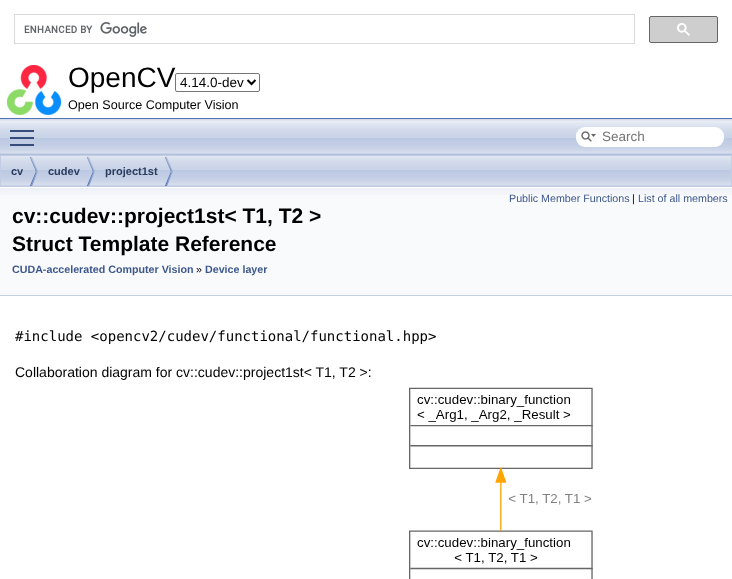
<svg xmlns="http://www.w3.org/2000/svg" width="732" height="579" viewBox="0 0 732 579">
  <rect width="100%" height="100%" fill="rgb(255,255,255)"/>
  <rect x="0" y="118" width="732" height="1" fill="rgb(83,115,180)"/>
  <rect x="14.5" y="14.5" width="620" height="29" fill="none" stroke="rgb(217,217,217)"/>
  <image x="24" y="22" width="123" height="15" href="pic1.png"/>
  <rect x="649.5" y="16.5" width="68" height="26" rx="1.5" fill="rgb(206,206,206)" stroke="rgb(102,102,102)"/>
  <image x="677" y="23" width="13" height="13" href="pic2.png"/>
  <image x="7" y="65" width="54" height="50" href="pic3.png"/>
  <text x="68" y="87" font-family="Liberation Sans" font-size="28" fill="rgb(0,0,0)">OpenCV</text>
  <rect x="175.5" y="73.5" width="84" height="18" rx="1.5" fill="none" stroke="rgb(118,118,118)"/>
  <path d="M247.5 80L251.5 84L255.5 80" fill="none" stroke="rgb(0,0,0)" stroke-width="2"/>
  <text x="180" y="87" font-family="Liberation Sans" font-size="13.5" fill="rgb(0,0,0)">4.14.0-dev</text>
  <text x="68" y="109" font-family="Liberation Sans" font-size="12.6" fill="rgb(0,0,0)">Open Source Computer Vision</text>
  <image x="0" y="119" width="732" height="36" href="pic4.png"/>
  <rect x="10" y="137" width="24" height="2" fill="rgb(54,77,124)"/>
  <rect x="10" y="130" width="24" height="2" fill="rgb(54,77,124)"/>
  <rect x="10" y="144" width="24" height="2" fill="rgb(54,77,124)"/>
  <rect x="576" y="127" width="148" height="20" rx="9" fill="rgb(255,255,255)"/>
  <image x="581" y="131" width="15" height="11" href="pic5.png"/>
  <text x="602" y="141" font-family="Liberation Sans" font-size="13.5" fill="rgb(117,117,117)">Search</text>
  <image x="1" y="156" width="730" height="30" href="pic6.png"/>
  <rect x="0.5" y="155.5" width="731" height="31" fill="none" stroke="rgb(194,205,228)"/>
  <image x="30" y="157" width="8" height="29" href="pic7.png"/>
  <text x="11" y="175" font-family="Liberation Sans" font-size="11" font-weight="bold" fill="rgb(40,58,93)">cv</text>
  <image x="87" y="157" width="8" height="29" href="pic7.png"/>
  <text x="48" y="175" font-family="Liberation Sans" font-size="11" font-weight="bold" fill="rgb(40,58,93)">cudev</text>
  <image x="165" y="157" width="8" height="29" href="pic7.png"/>
  <text x="105" y="175" font-family="Liberation Sans" font-size="11" font-weight="bold" fill="rgb(40,58,93)">project1st</text>
  <rect x="0" y="195" width="732" height="100" fill="rgb(249,250,252)"/>
  <image x="0" y="187" width="732" height="8" href="pic8.png"/>
  <rect x="0" y="295" width="732" height="1" fill="rgb(196,207,229)"/>
  <text x="509" y="202" font-family="Liberation Sans" font-size="10.7" fill="rgb(61,87,140)">Public Member Functions</text>
  <text x="632" y="202" font-family="Liberation Sans" font-size="10.7" fill="rgb(0,0,0)">|</text>
  <text x="638" y="202" font-family="Liberation Sans" font-size="10.7" fill="rgb(61,87,140)">List of all members</text>
  <g font-family="Liberation Sans" font-size="21" font-weight="bold" fill="rgb(0,0,0)">
    <text>
      <tspan x="12" y="223">cv::cudev::project1st&lt; T1, T2 &gt;</tspan>
      <tspan x="12" y="251">Struct Template Reference</tspan>
    </text>
  </g>
  <text x="12" y="273" font-family="Liberation Sans" font-size="10.7" font-weight="bold" fill="rgb(61,87,140)">CUDA-accelerated Computer Vision</text>
  <text x="196" y="273" font-family="Liberation Sans" font-size="10.7" fill="rgb(0,0,0)">»</text>
  <text x="205" y="273" font-family="Liberation Sans" font-size="10.7" font-weight="bold" fill="rgb(61,87,140)">Device layer</text>
  <text x="15" y="341" font-family="DejaVu Sans Mono" font-size="14" fill="rgb(0,0,0)">#include &lt;opencv2/cudev/functional/functional.hpp&gt;</text>
  <text x="15" y="377" font-family="Liberation Sans" font-size="14" fill="rgb(0,0,0)">Collaboration diagram for cv::cudev::project1st&lt; T1, T2 &gt;:</text>
  <image x="409" y="387" width="184" height="192" href="pic9.png"/>
</svg>
